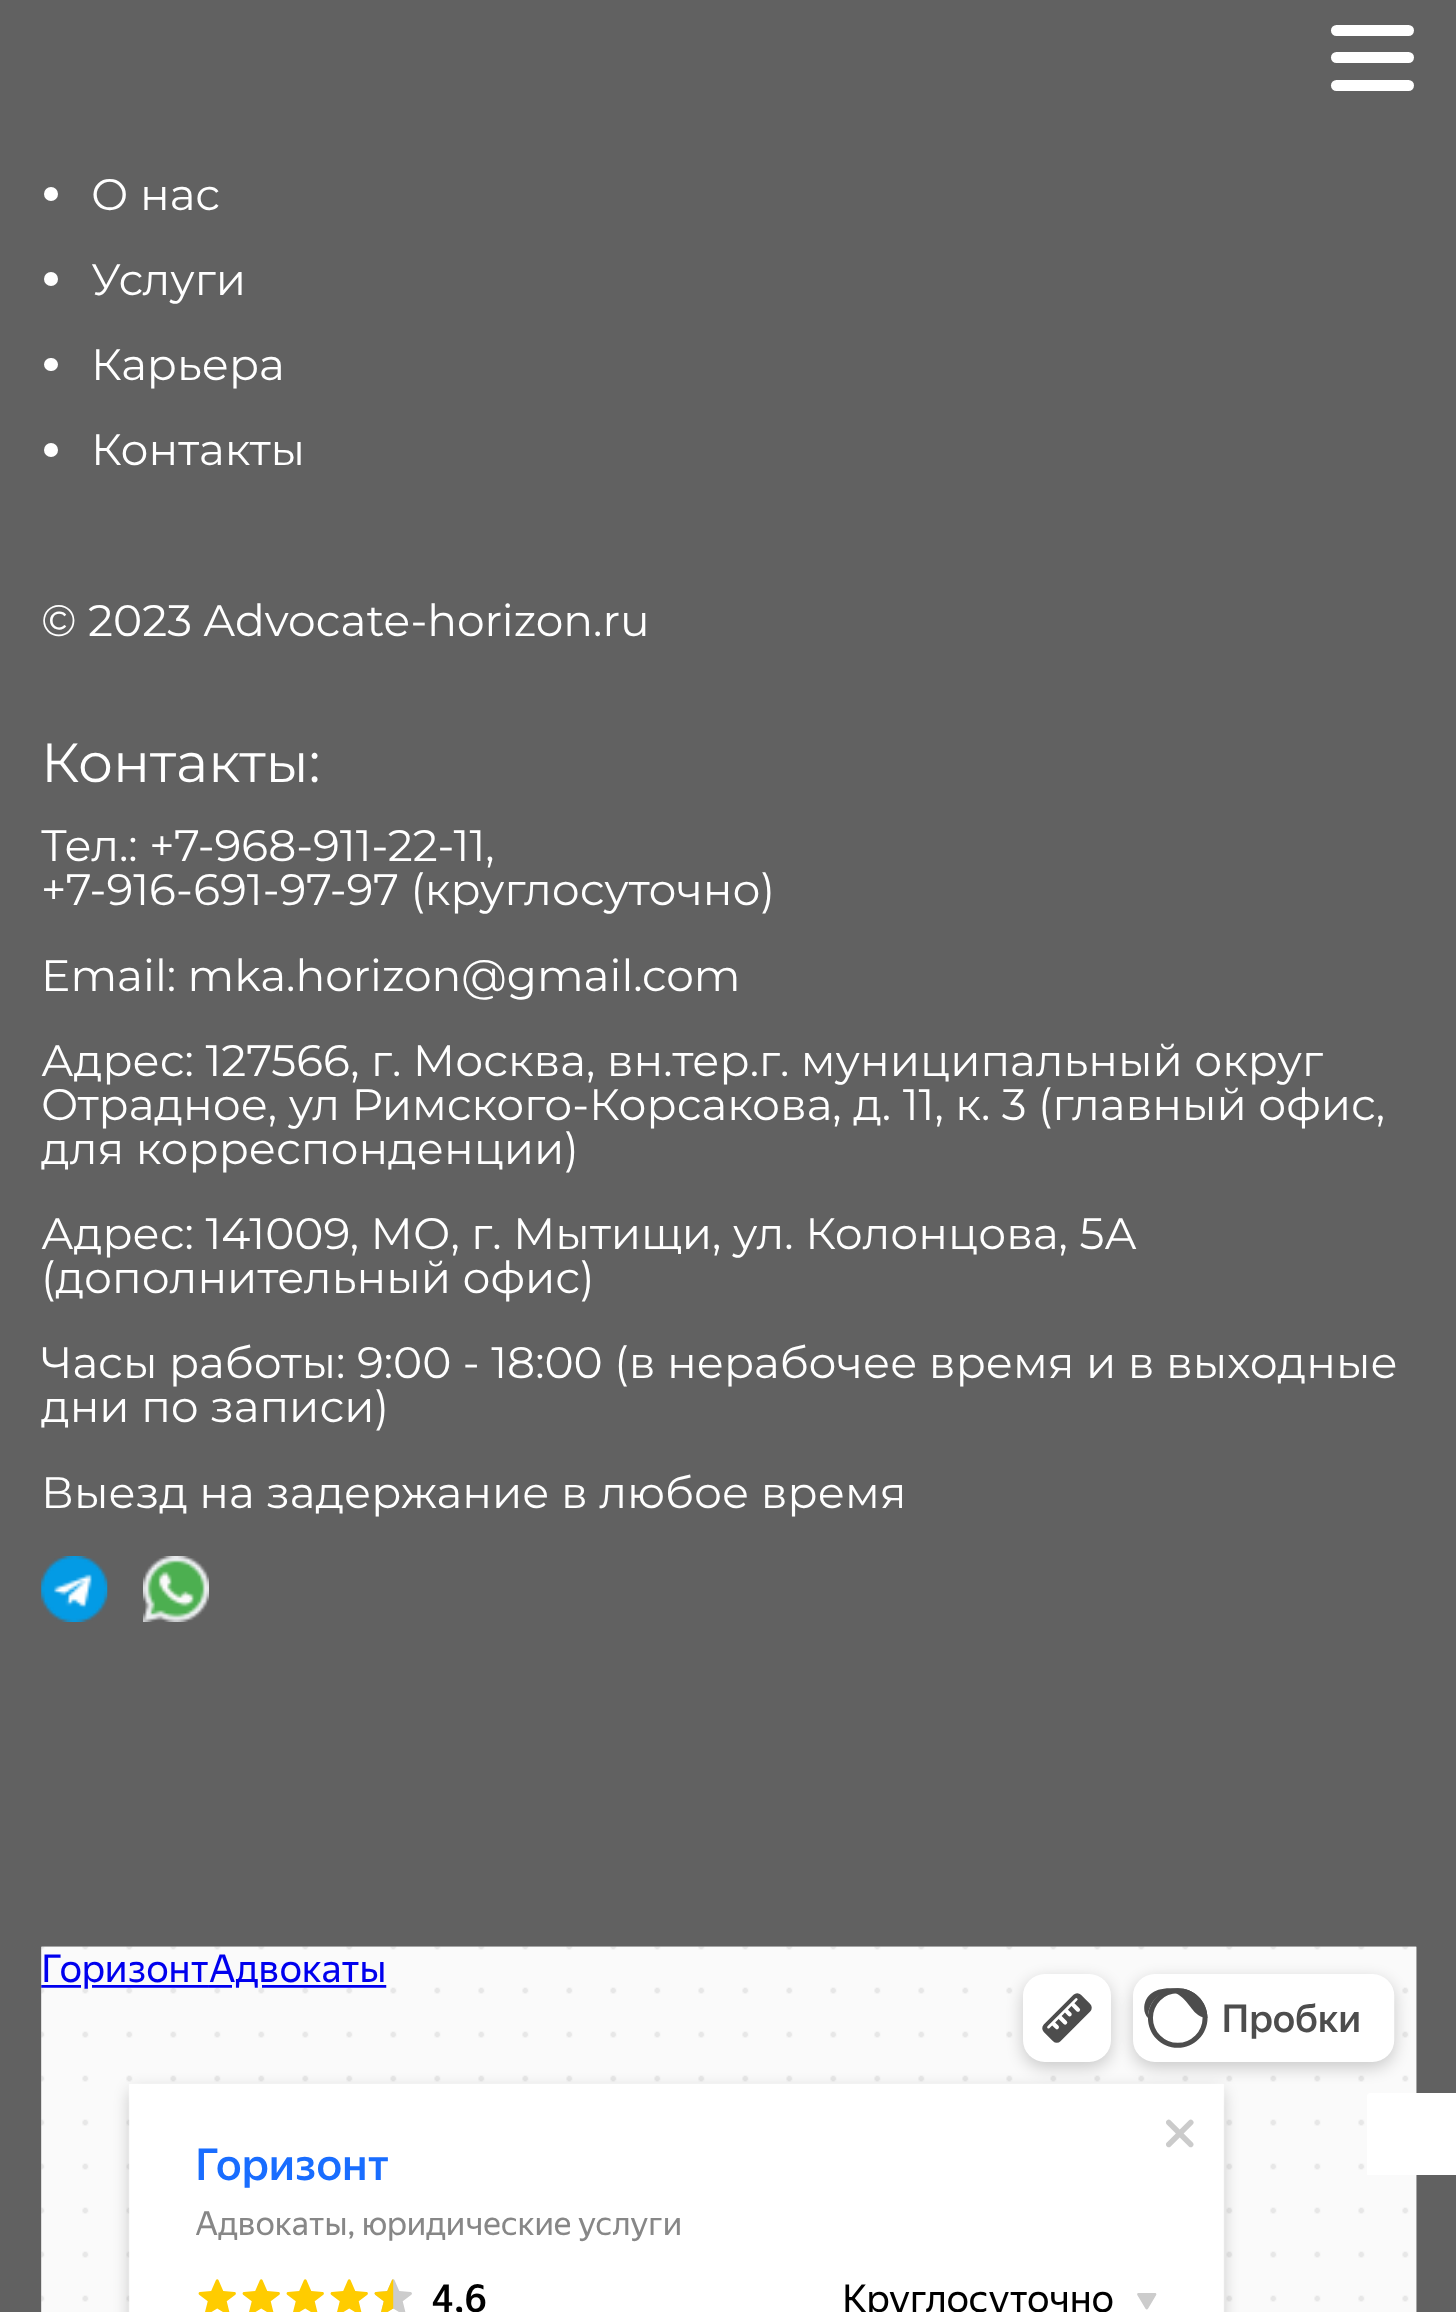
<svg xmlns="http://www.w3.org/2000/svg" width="1456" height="2312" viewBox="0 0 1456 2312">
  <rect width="100%" height="100%" fill="rgb(97,97,97)"/>
  <rect x="1331" y="25" width="83" height="11" rx="5.5" fill="rgb(255,255,255)"/>
  <rect x="1331" y="52" width="83" height="11" rx="5.5" fill="rgb(255,255,255)"/>
  <rect x="1331" y="80" width="83" height="11" rx="5.5" fill="rgb(255,255,255)"/>
  <circle cx="51" cy="194" r="7" fill="rgb(255,255,255)"/>
  <text x="91" y="210" font-family="Montserrat" font-size="44" fill="rgb(255,255,255)">О нас</text>
  <circle cx="51" cy="279" r="7" fill="rgb(255,255,255)"/>
  <text x="91" y="295" font-family="Montserrat" font-size="44" fill="rgb(255,255,255)">Услуги</text>
  <rect x="44" y="358" width="14" height="13" rx="6.5" fill="rgb(255,255,255)"/>
  <text x="91" y="380" font-family="Montserrat" font-size="44" fill="rgb(255,255,255)">Карьера</text>
  <circle cx="51" cy="450" r="7" fill="rgb(255,255,255)"/>
  <g font-family="Montserrat" font-size="44" fill="rgb(255,255,255)">
    <text x="91" y="465">Контакты</text>
    <text x="41" y="636">© 2023 Advocate-horizon.ru</text>
  </g>
  <text x="41" y="782" font-family="Montserrat" font-size="55" fill="rgb(255,255,255)">Контакты:</text>
  <g font-family="Montserrat" font-size="44" fill="rgb(255,255,255)">
    <text>
      <tspan x="41" y="861">Тел.: +7-968-911-22-11,</tspan>
      <tspan x="41" y="905">+7-916-691-97-97 (круглосуточно)</tspan>
      <tspan x="41" y="991">Email: mka.horizon@gmail.com</tspan>
      <tspan x="41" y="1076">Адрес: 127566, г. Москва, вн.тер.г. муниципальный округ</tspan>
      <tspan x="41" y="1120">Отрадное, ул Римского-Корсакова, д. 11, к. 3 (главный офис,</tspan>
      <tspan x="41" y="1164">для корреспонденции)</tspan>
      <tspan x="41" y="1249">Адрес: 141009, МО, г. Мытищи, ул. Колонцова, 5А</tspan>
      <tspan x="41" y="1293">(дополнительный офис)</tspan>
      <tspan x="41" y="1378">Часы работы: 9:00 - 18:00 (в нерабочее время и в выходные</tspan>
      <tspan x="41" y="1422">дни по записи)</tspan>
      <tspan x="41" y="1508">Выезд на задержание в любое время</tspan>
    </text>
  </g>
  <image x="41" y="1556" width="67" height="66" href="pic1.png"/>
  <image x="143" y="1556" width="66" height="66" href="pic2.png"/>
  <image x="41" y="1946" width="1376" height="366" href="pic3.png"/>
  <path d="M1370 2093H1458V2175H1367V2096C1367 2094.5 1368.5 2093 1370 2093Z" fill="rgb(255,255,255)"/>
</svg>
